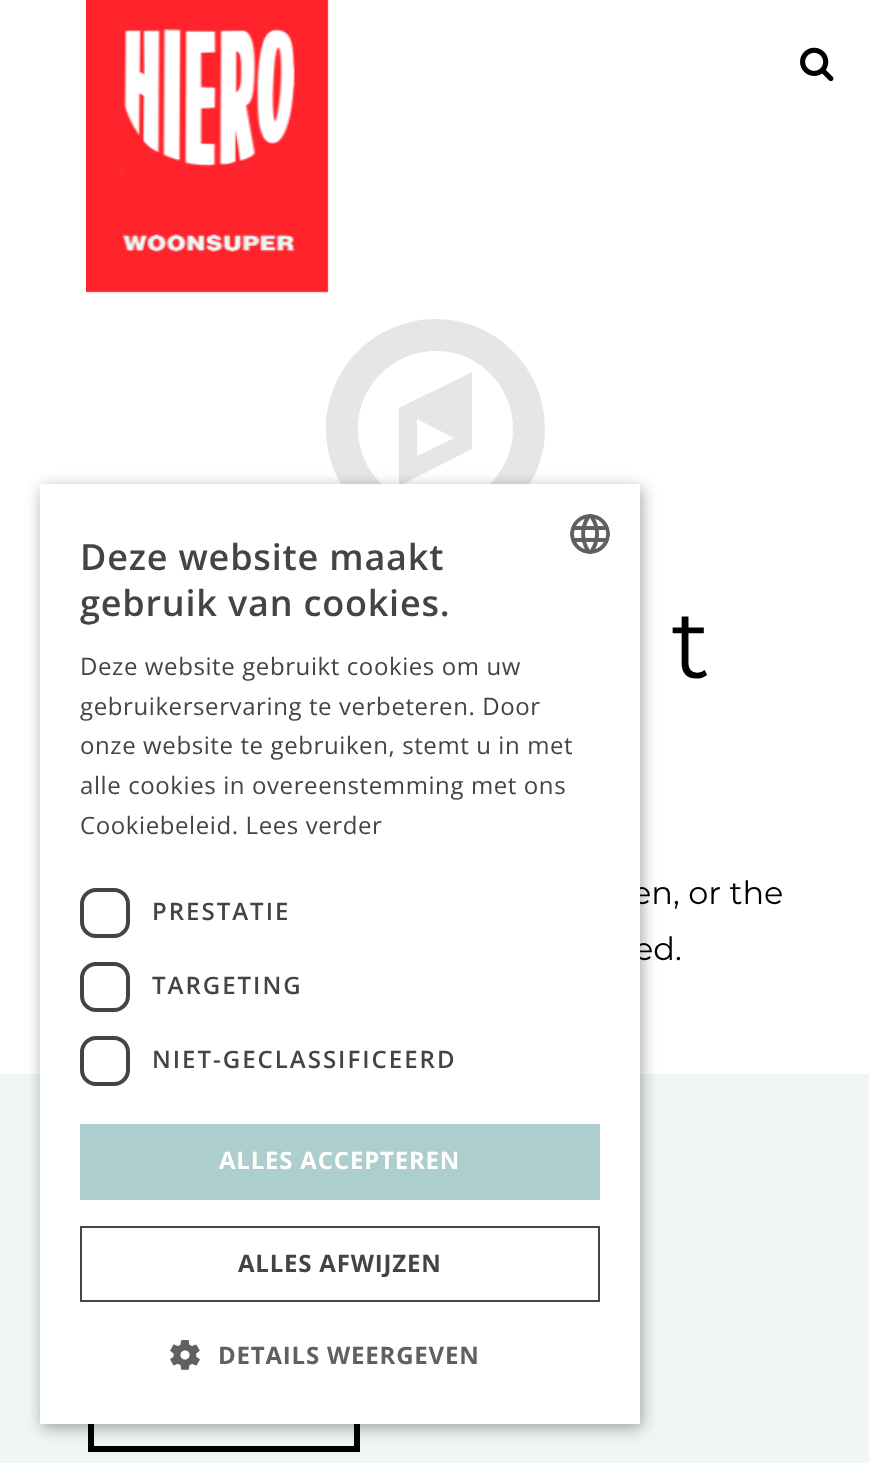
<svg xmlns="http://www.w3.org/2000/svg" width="869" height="1463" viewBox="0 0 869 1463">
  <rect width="100%" height="100%" fill="rgb(255,255,255)"/>
  <path d="M417 456V419L454 438ZM472 372L399 408V486L472 449ZM513 429C513 471 479 506 436 506C393 506 358 471 358 429C358 386 393 351 436 351C479 351 513 386 513 429ZM545 429C545 368 496 319 436 319C375 319 326 368 326 429C326 489 375 538 436 538C496 538 545 489 545 429Z" fill="rgb(230,230,230)"/>
  <rect x="0" y="1074" width="869" height="389" fill="rgb(240,246,246)"/>
  <rect x="91" y="1371" width="266" height="78" fill="none" stroke="rgb(0,0,0)" stroke-width="6"/>
  <rect x="42" y="488" width="600" height="940" fill="rgba(0,0,0,0.35)" filter="blur(8px)"/>
  <g font-family="Montserrat" font-size="32" fill="rgb(0,0,0)">
    <text x="632" y="904">en, or the</text>
    <text x="634" y="960">ed.</text>
  </g>
  <rect x="40" y="484" width="600" height="940" fill="rgb(255,255,255)"/>
  <image x="570" y="514" width="40" height="40" href="pic1.png"/>
  <g font-family="Open Sans" font-size="36" font-weight="600" letter-spacing="0.8" fill="rgb(68,68,68)">
    <text>
      <tspan x="80" y="570">Deze website maakt</tspan>
      <tspan x="80" y="616">gebruik van cookies.</tspan>
    </text>
  </g>
  <g font-family="Open Sans" font-size="24" letter-spacing="0.6" fill="rgb(68,68,68)">
    <text>
      <tspan x="80" y="675">Deze website gebruikt cookies om uw</tspan>
      <tspan x="80" y="715">gebruikerservaring te verbeteren. Door</tspan>
      <tspan x="80" y="754">onze website te gebruiken, stemt u in met</tspan>
      <tspan x="80" y="794">alle cookies in overeenstemming met ons</tspan>
      <tspan x="80" y="834">Cookiebeleid. Lees verder</tspan>
    </text>
  </g>
  <rect x="82" y="890" width="46" height="46" rx="14" fill="none" stroke="rgb(68,68,68)" stroke-width="4"/>
  <text x="152" y="920" font-family="Open Sans" font-size="24" font-weight="600" letter-spacing="2" fill="rgb(68,68,68)">PRESTATIE</text>
  <rect x="82" y="964" width="46" height="46" rx="14" fill="none" stroke="rgb(68,68,68)" stroke-width="4"/>
  <text x="152" y="994" font-family="Open Sans" font-size="24" font-weight="600" letter-spacing="2" fill="rgb(68,68,68)">TARGETING</text>
  <rect x="82" y="1038" width="46" height="46" rx="14" fill="none" stroke="rgb(68,68,68)" stroke-width="4"/>
  <text x="152" y="1068" font-family="Open Sans" font-size="24" font-weight="600" letter-spacing="2" fill="rgb(68,68,68)">NIET-GECLASSIFICEERD</text>
  <rect x="80" y="1124" width="520" height="76" fill="rgb(173,206,206)"/>
  <text x="219" y="1169" font-family="Open Sans" font-size="24" font-weight="bold" letter-spacing="0.8" fill="rgb(255,255,255)">ALLES ACCEPTEREN</text>
  <rect x="81" y="1227" width="518" height="74" fill="none" stroke="rgb(68,68,68)" stroke-width="2"/>
  <text x="238" y="1272" font-family="Open Sans" font-size="24" font-weight="bold" letter-spacing="0.8" fill="rgb(68,68,68)">ALLES AFWIJZEN</text>
  <image x="170" y="1340" width="30" height="30" href="pic2.png"/>
  <text x="218" y="1364" font-family="Open Sans" font-size="24" font-weight="bold" letter-spacing="0.8" fill="rgb(96,96,96)">DETAILS WEERGEVEN</text>
  <image x="86" y="0" width="243" height="293" href="pic3.png"/>
  <image x="800" y="47" width="34" height="35" href="pic4.png"/>
  <text x="671" y="678" font-family="Montserrat" font-size="96" fill="rgb(0,0,0)">t</text>
</svg>
